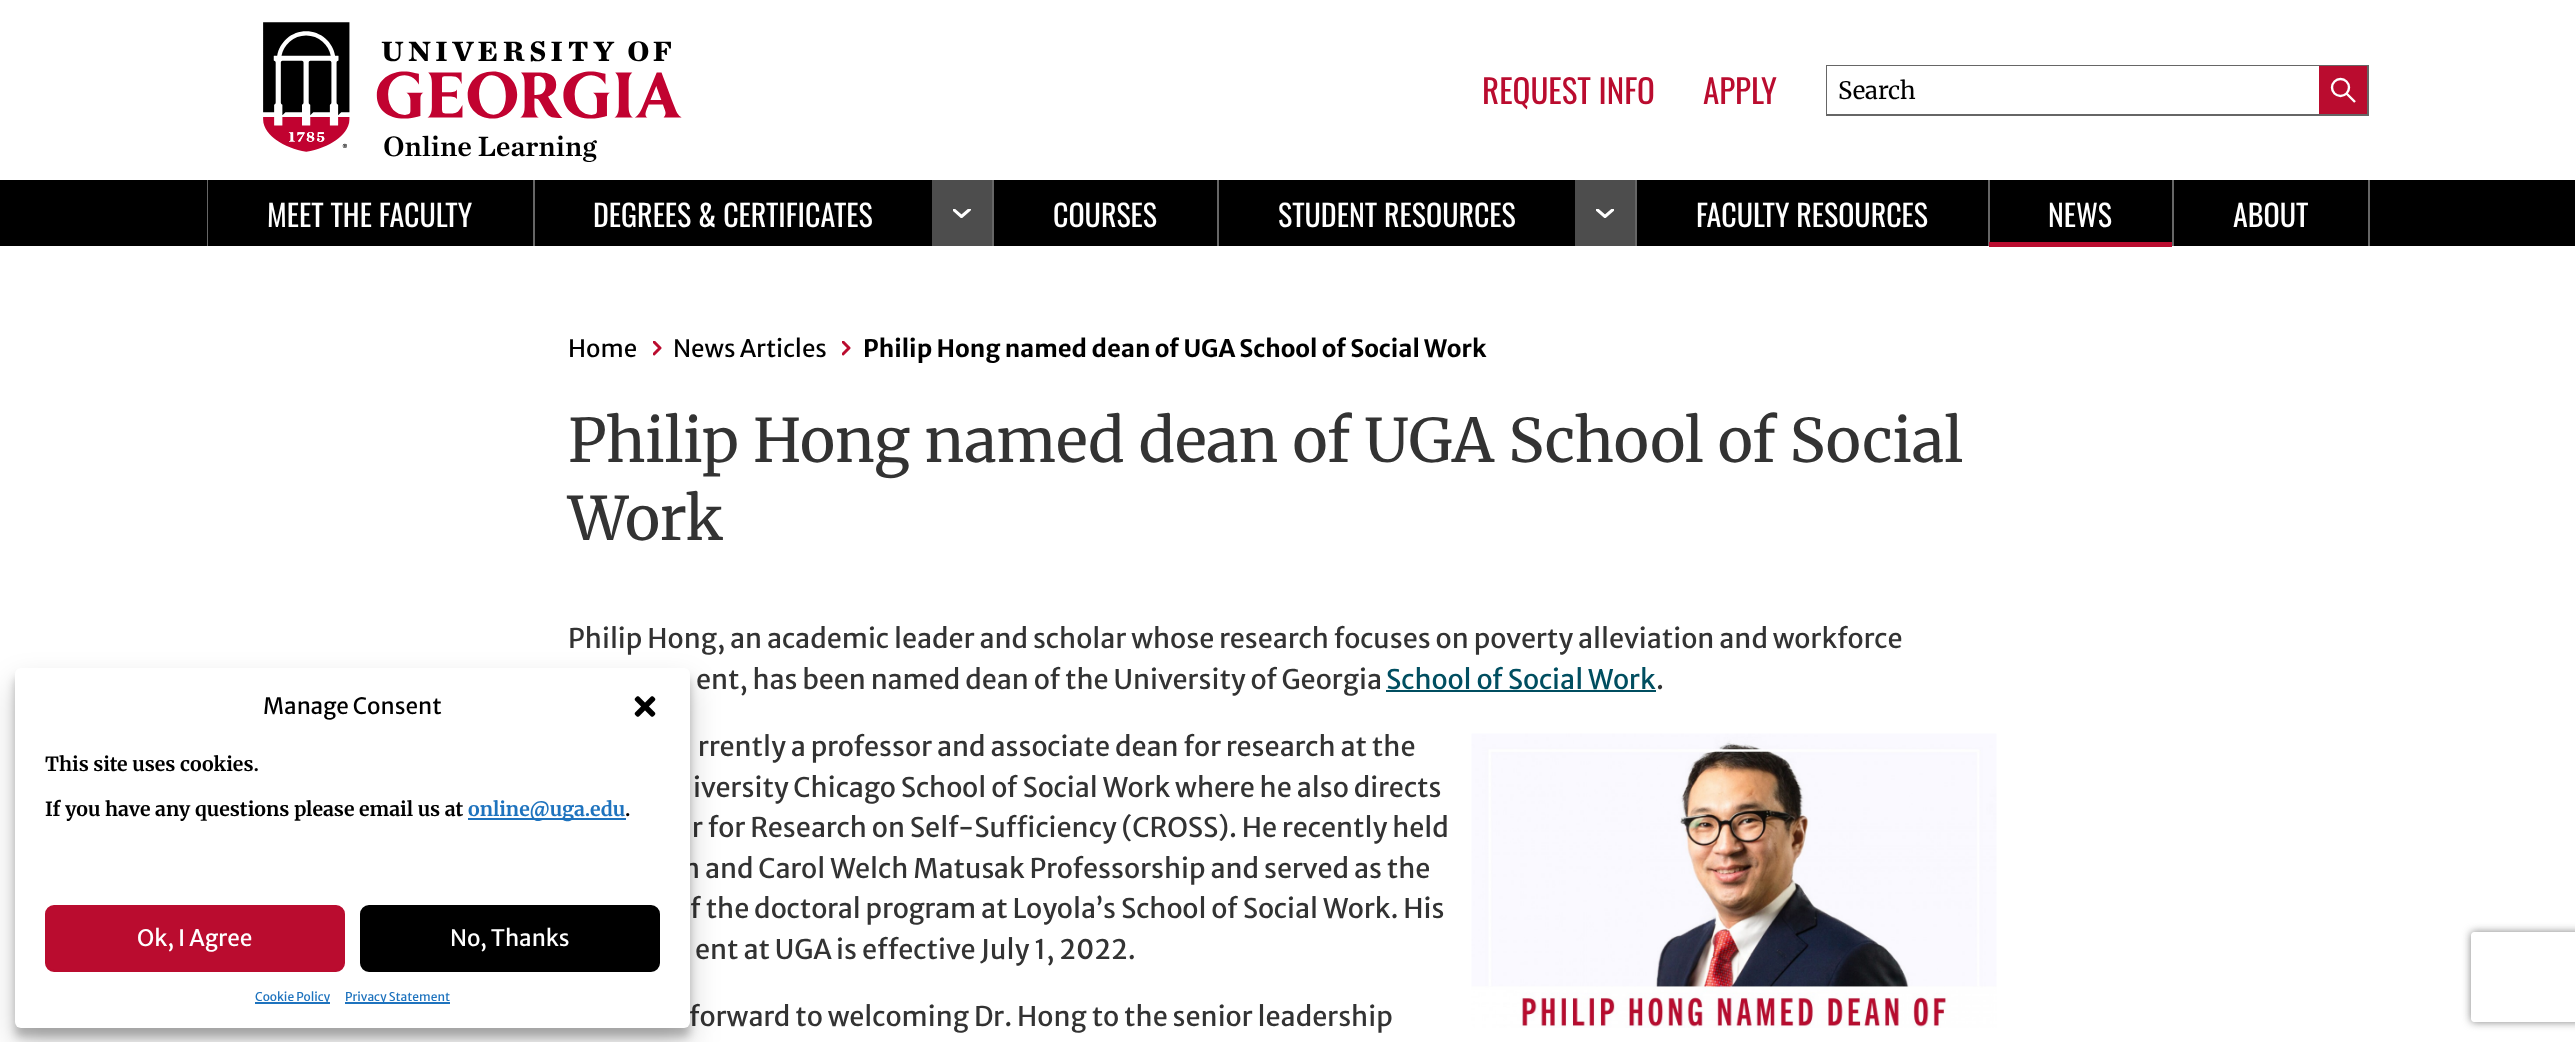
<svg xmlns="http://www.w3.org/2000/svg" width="2575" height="1042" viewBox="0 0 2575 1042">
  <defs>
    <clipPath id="clip1"><rect x="953" y="209" width="18" height="9"/></clipPath>
    <clipPath id="clip2"><rect x="1596" y="209" width="18" height="9"/></clipPath>
    <clipPath id="clip3"><rect x="653" y="341" width="9" height="15"/></clipPath>
    <clipPath id="clip4"><rect x="842" y="341" width="9" height="15"/></clipPath>
    <clipPath id="clip5"><path d="M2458 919H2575V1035H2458ZM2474 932H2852C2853.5 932 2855 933.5 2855 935V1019C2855 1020.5 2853.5 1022 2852 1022H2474C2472.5 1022 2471 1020.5 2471 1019V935C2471 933.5 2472.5 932 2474 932Z" clip-rule="evenodd"/></clipPath>
  </defs>
  <rect width="100%" height="100%" fill="rgb(255,255,255)"/>
  <image x="263" y="22" width="419" height="140" href="pic1.png"/>
  <g font-family="Oswald" font-size="33" fill="rgb(186,12,47)">
    <text x="1482" y="104">REQUEST INFO</text>
    <text x="1703" y="104">APPLY</text>
  </g>
  <rect x="1827" y="66" width="541" height="49" fill="none" stroke="rgb(102,102,102)" stroke-width="2"/>
  <rect x="1827" y="66" width="492" height="48" fill="rgb(255,255,255)"/>
  <text x="1838" y="99" font-family="Merriweather" font-size="24" fill="rgb(0,0,0)">Search</text>
  <rect x="2319" y="66" width="48" height="48" fill="rgb(186,12,47)"/>
  <circle cx="2340.5" cy="87.5" r="8.5" fill="none" stroke="rgb(255,255,255)" stroke-width="2.4"/>
  <path d="M2346.5 93.5L2355 102" fill="none" stroke="rgb(255,255,255)" stroke-width="2.4"/>
  <rect x="0" y="180" width="2575" height="66" fill="rgb(0,0,0)"/>
  <rect x="207" y="180" width="1" height="66" fill="rgb(102,102,102)"/>
  <rect x="2368" y="180" width="2" height="66" fill="rgb(102,102,102)"/>
  <text x="267" y="227" font-family="Oswald" font-size="30" fill="rgb(255,255,255)">MEET THE FACULTY</text>
  <rect x="533" y="180" width="2" height="66" fill="rgb(102,102,102)"/>
  <text x="593" y="227" font-family="Oswald" font-size="30" fill="rgb(255,255,255)">DEGREES &amp; CERTIFICATES</text>
  <rect x="932" y="180" width="60" height="66" fill="rgb(77,77,77)"/>
  <g clip-path="url(#clip1)">
    <path d="M953.5 209.5L961.5 216.5L969.5 209.5" fill="none" stroke="rgb(255,255,255)" stroke-width="3" stroke-linecap="round" stroke-linejoin="round"/>
  </g>
  <rect x="992" y="180" width="2" height="66" fill="rgb(102,102,102)"/>
  <text x="1053" y="227" font-family="Oswald" font-size="30" fill="rgb(255,255,255)">COURSES</text>
  <rect x="1217" y="180" width="2" height="66" fill="rgb(102,102,102)"/>
  <text x="1278" y="227" font-family="Oswald" font-size="30" fill="rgb(255,255,255)">STUDENT RESOURCES</text>
  <rect x="1575" y="180" width="60" height="66" fill="rgb(77,77,77)"/>
  <g clip-path="url(#clip2)">
    <path d="M1597 209.5L1605 216.5L1613 209.5" fill="none" stroke="rgb(255,255,255)" stroke-width="3" stroke-linecap="round" stroke-linejoin="round"/>
  </g>
  <rect x="1635" y="180" width="2" height="66" fill="rgb(102,102,102)"/>
  <text x="1696" y="227" font-family="Oswald" font-size="30" fill="rgb(255,255,255)">FACULTY RESOURCES</text>
  <rect x="1988" y="180" width="2" height="66" fill="rgb(102,102,102)"/>
  <rect x="1989" y="242" width="183" height="5" fill="rgb(186,12,47)"/>
  <text x="2048" y="227" font-family="Oswald" font-size="30" fill="rgb(255,255,255)">NEWS</text>
  <rect x="2172" y="180" width="2" height="66" fill="rgb(102,102,102)"/>
  <text x="2233" y="227" font-family="Oswald" font-size="30" fill="rgb(255,255,255)">ABOUT</text>
  <text x="568" y="357" font-family="Merriweather Sans" font-size="24" fill="rgb(0,0,0)">Home</text>
  <g clip-path="url(#clip3)">
    <path d="M654 342L660 348L654 354" fill="none" stroke="rgb(186,12,47)" stroke-width="3" stroke-linecap="round" stroke-linejoin="round"/>
  </g>
  <text x="673" y="357" font-family="Merriweather Sans" font-size="24" fill="rgb(0,0,0)">News Articles</text>
  <g clip-path="url(#clip4)">
    <path d="M843 342L849 348L843 354" fill="none" stroke="rgb(186,12,47)" stroke-width="3" stroke-linecap="round" stroke-linejoin="round"/>
  </g>
  <text x="863" y="357" font-family="Merriweather Sans" font-size="24" font-weight="bold" fill="rgb(0,0,0)">Philip Hong named dean of UGA School of Social Work</text>
  <g font-family="Merriweather" font-size="60" fill="rgb(51,51,51)">
    <text>
      <tspan x="568" y="462">Philip Hong named dean of UGA School of Social</tspan>
      <tspan x="568" y="540">Work</tspan>
    </text>
  </g>
  <g font-family="Merriweather Sans" font-size="27" fill="rgb(51,51,51)">
    <text x="568" y="648">Philip Hong, an academic leader and scholar whose research focuses on poverty alleviation and workforce</text>
    <text x="696" y="689">ent, has been named dean of the University of Georgia</text>
  </g>
  <text x="1386" y="689" font-family="Merriweather Sans" font-size="27" fill="rgb(0,78,96)">School of Social Work</text>
  <rect x="1386" y="690" width="270" height="2" fill="rgb(0,78,96)"/>
  <g font-family="Merriweather Sans" font-size="27" fill="rgb(51,51,51)">
    <text x="1656" y="689">.</text>
    <text x="698" y="756">rrently a professor and associate dean for research at the</text>
  </g>
  <image x="1471" y="733" width="526" height="295" href="pic2.png"/>
  <g font-family="Merriweather Sans" font-size="27" fill="rgb(51,51,51)">
    <text x="693" y="797">iversity Chicago School of Social Work where he also directs</text>
    <text x="692" y="837">r for Research on Self-Sufficiency (CROSS). He recently held</text>
    <text x="683" y="878">n and Carol Welch Matusak Professorship and served as the</text>
    <text x="690" y="918">f the doctoral program at Loyola’s School of Social Work. His</text>
    <text x="695" y="959">ent at UGA is effective July 1, 2022.</text>
    <text x="689" y="1026">forward to welcoming Dr. Hong to the senior leadership</text>
  </g>
  <rect x="15" y="677" width="675" height="360" rx="6" fill="rgba(0,0,0,0.23)" filter="blur(4.5px)"/>
  <rect x="15" y="683" width="675" height="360" rx="6" fill="rgba(0,0,0,0.19)" filter="blur(15px)"/>
  <rect x="15" y="668" width="675" height="360" rx="6" fill="rgb(255,255,255)"/>
  <text x="263" y="714" font-family="Merriweather Sans" font-size="22.5" fill="rgb(0,0,0)">Manage Consent</text>
  <image x="634" y="696" width="22" height="21" href="pic3.png"/>
  <g font-family="Merriweather" font-size="19.5" font-weight="bold" fill="rgb(0,0,0)">
    <text x="45" y="771">This site uses cookies.</text>
    <text x="45" y="816">If you have any questions please email us at</text>
  </g>
  <rect x="468" y="818" width="158" height="2" fill="rgb(30,115,190)"/>
  <text x="468" y="816" font-family="Merriweather" font-size="19.5" font-weight="bold" fill="rgb(30,115,190)">online@uga.edu</text>
  <text x="625" y="816" font-family="Merriweather" font-size="19.5" font-weight="bold" fill="rgb(0,0,0)">.</text>
  <rect x="46" y="906" width="298" height="65" rx="8" fill="rgb(186,12,47)" stroke="rgb(186,12,47)" stroke-width="2"/>
  <text x="137" y="946" font-family="Merriweather Sans" font-size="22.5" fill="rgb(255,255,255)">Ok, I Agree</text>
  <rect x="361" y="906" width="298" height="65" rx="8" fill="rgb(0,0,0)" stroke="rgb(0,0,0)" stroke-width="2"/>
  <text x="450" y="946" font-family="Merriweather Sans" font-size="22.5" fill="rgb(255,255,255)">No, Thanks</text>
  <rect x="255" y="1002" width="75" height="2" fill="rgb(30,115,190)"/>
  <text x="255" y="1001" font-family="Merriweather Sans" font-size="12" fill="rgb(30,115,190)">Cookie Policy</text>
  <rect x="345" y="1002" width="105" height="2" fill="rgb(30,115,190)"/>
  <text x="345" y="1001" font-family="Merriweather Sans" font-size="12" fill="rgb(30,115,190)">Privacy Statement</text>
  <g clip-path="url(#clip5)">
    <rect x="2471" y="932" width="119" height="90" rx="3" fill="rgb(128,128,128)" filter="blur(4px)"/>
  </g>
</svg>
